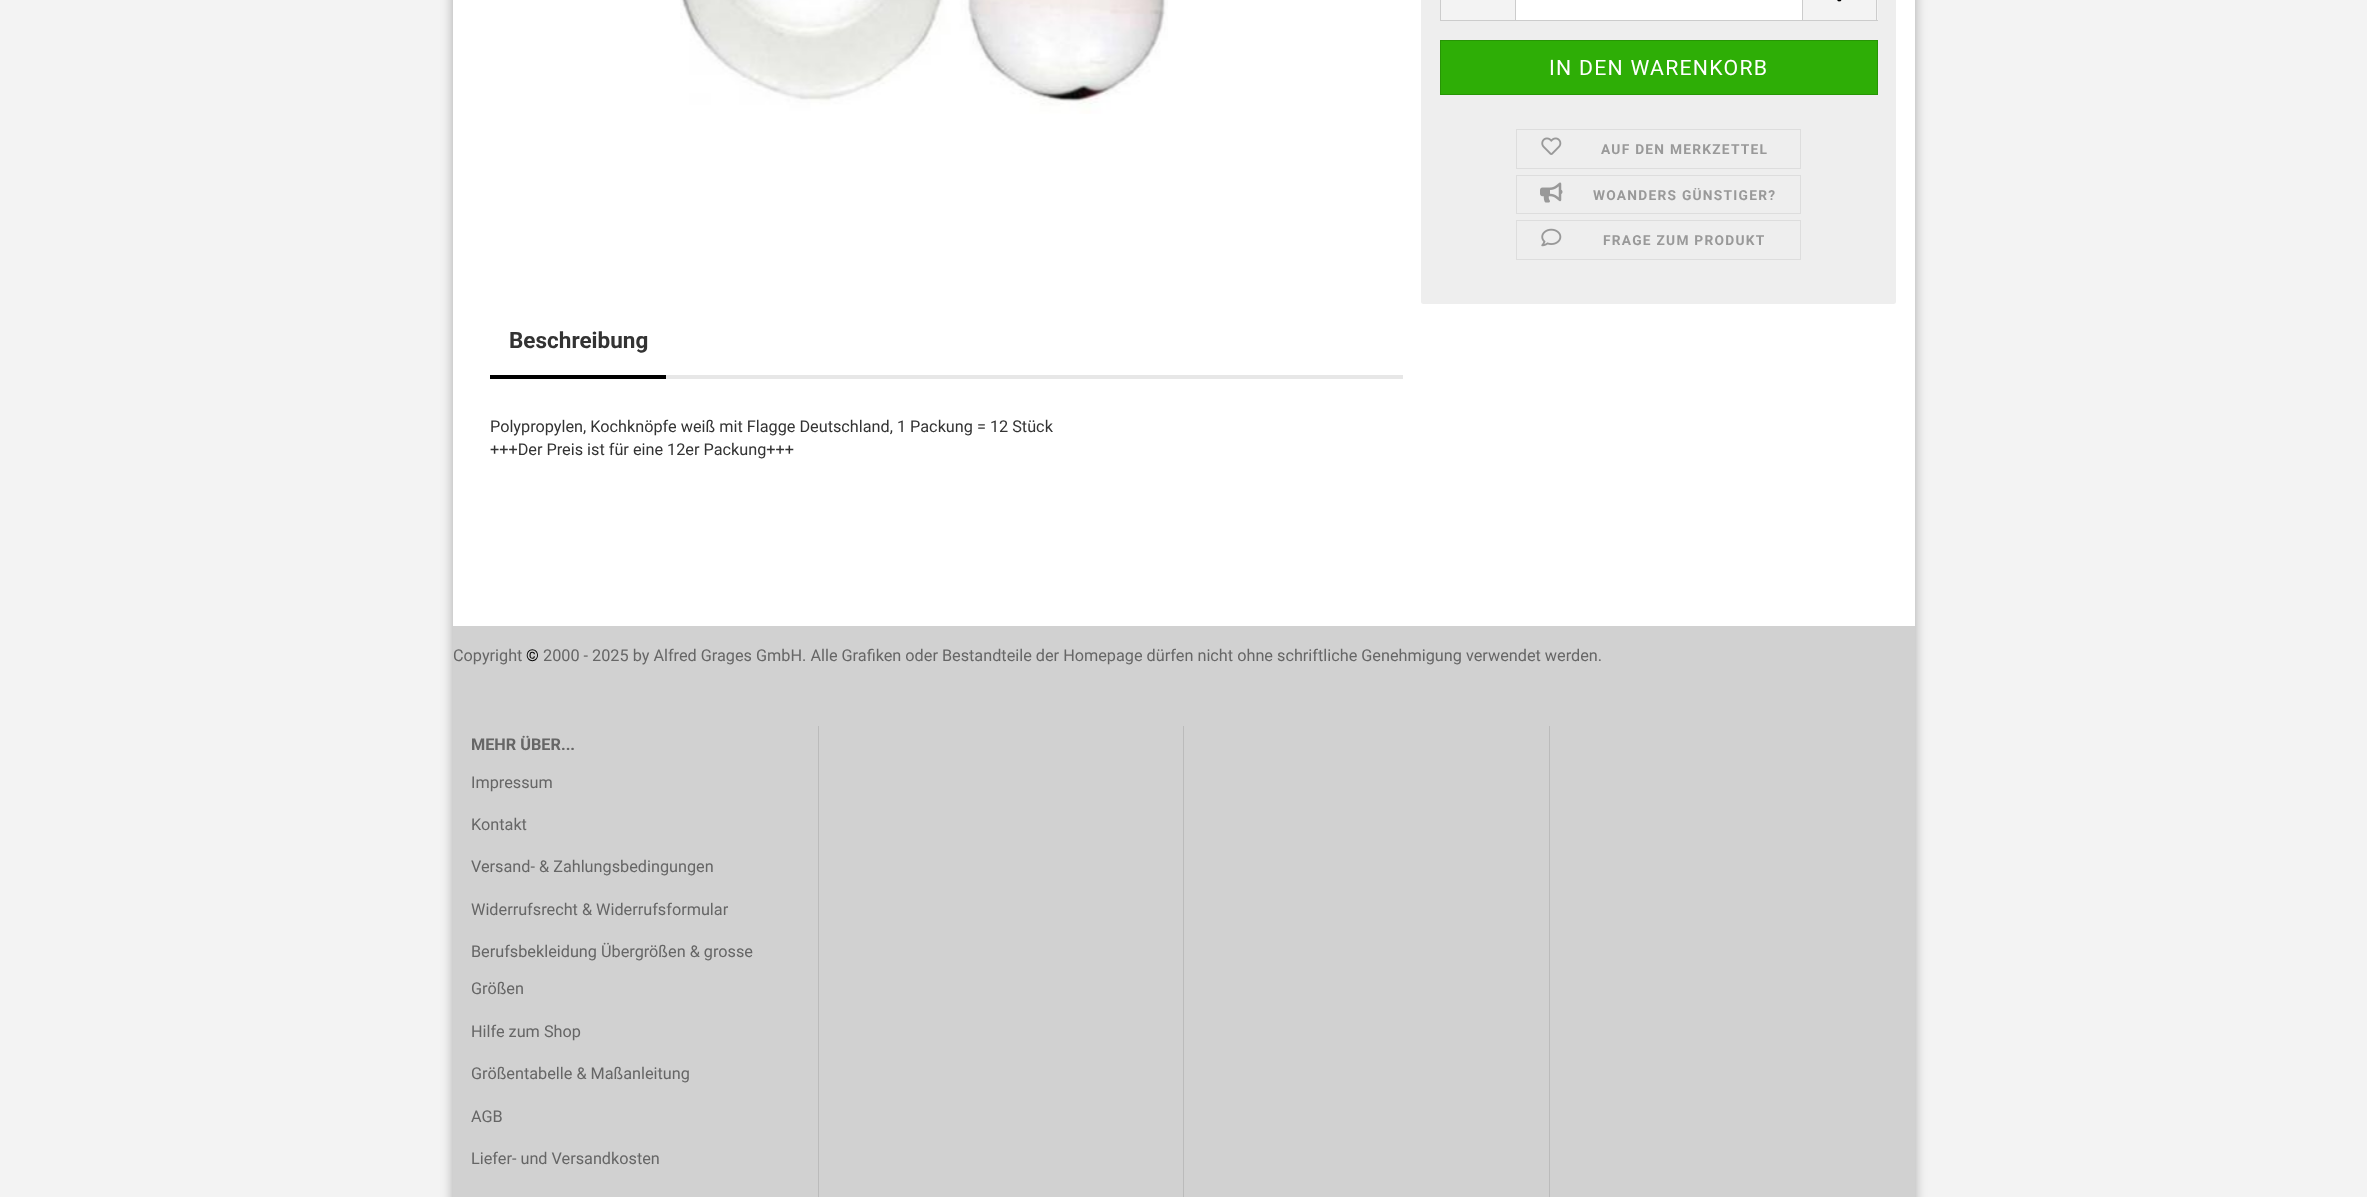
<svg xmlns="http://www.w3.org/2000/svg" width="2367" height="1197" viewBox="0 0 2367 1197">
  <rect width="100%" height="100%" fill="rgb(243,243,243)"/>
  <rect x="453" y="-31" width="1462" height="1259" rx="13" fill="rgba(0,0,0,0.3)" filter="blur(6px)"/>
  <rect x="453" y="0" width="1462" height="626" fill="rgb(255,255,255)"/>
  <image x="680" y="0" width="488" height="114" href="pic1.png"/>
  <rect x="1421" y="-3" width="475" height="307" rx="2.5" fill="rgb(238,238,238)"/>
  <rect x="1441" y="0" width="74" height="20" fill="rgb(243,243,243)"/>
  <rect x="1440" y="20" width="75" height="1" fill="rgb(204,204,204)"/>
  <rect x="1440" y="0" width="1" height="21" fill="rgb(204,204,204)"/>
  <rect x="1515.5" y="-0.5" width="287" height="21" fill="rgb(255,255,255)" stroke="rgb(204,204,204)"/>
  <rect x="1803" y="0" width="75" height="20" fill="rgb(243,243,243)"/>
  <rect x="1876" y="0" width="1" height="21" fill="rgb(204,204,204)"/>
  <rect x="1803" y="20" width="75" height="1" fill="rgb(204,204,204)"/>
  <image x="1837" y="0" width="5" height="2" href="pic2.png"/>
  <rect x="1440.5" y="40.5" width="437" height="54" fill="rgb(46,174,6)" stroke="rgb(39,149,5)"/>
  <text x="1549" y="75" font-family="Roboto" font-size="21.25" letter-spacing="1.25" fill="rgb(255,255,255)">IN DEN WARENKORB</text>
  <rect x="1516.5" y="129.5" width="284" height="39" fill="none" stroke="rgb(221,221,221)"/>
  <image x="1541" y="137" width="21" height="18" href="pic3.png"/>
  <text x="1601" y="154" font-family="Roboto" font-size="13.75" font-weight="bold" letter-spacing="1.25" fill="rgb(153,153,153)">AUF DEN MERKZETTEL</text>
  <rect x="1516.5" y="175.5" width="284" height="38" fill="none" stroke="rgb(221,221,221)"/>
  <image x="1540" y="182" width="23" height="21" href="pic4.png"/>
  <text x="1593" y="200" font-family="Roboto" font-size="13.75" font-weight="bold" letter-spacing="1.25" fill="rgb(153,153,153)">WOANDERS GÜNSTIGER?</text>
  <rect x="1516.5" y="220.5" width="284" height="39" fill="none" stroke="rgb(221,221,221)"/>
  <image x="1541" y="228" width="21" height="19" href="pic5.png"/>
  <text x="1603" y="245" font-family="Roboto" font-size="13.75" font-weight="bold" letter-spacing="1.25" fill="rgb(153,153,153)">FRAGE ZUM PRODUKT</text>
  <rect x="666" y="375" width="737" height="4" fill="rgb(231,231,231)"/>
  <rect x="490" y="375" width="176" height="4" fill="rgb(0,0,0)"/>
  <text x="509" y="348" font-family="Roboto" font-size="22.5" font-weight="bold" fill="rgb(51,51,51)">Beschreibung</text>
  <g font-family="Roboto" font-size="16.25" fill="rgb(51,51,51)">
    <text>
      <tspan x="490" y="432">Polypropylen, Kochknöpfe weiß mit Flagge Deutschland, 1 Packung = 12 Stück</tspan>
      <tspan x="490" y="455">+++Der Preis ist für eine 12er Packung+++</tspan>
    </text>
  </g>
  <rect x="453" y="626" width="1462" height="571" fill="rgb(209,209,209)"/>
  <text x="453" y="661" font-family="Roboto" font-size="16.25" fill="rgb(102,102,102)">Copyright</text>
  <text x="526" y="661" font-family="Roboto" font-size="16.25" fill="rgb(0,0,0)">©</text>
  <text x="543" y="661" font-family="Roboto" font-size="16.25" fill="rgb(102,102,102)">2000 - 2025 by Alfred Grages GmbH. Alle Grafiken oder Bestandteile der Homepage dürfen nicht ohne schriftliche Genehmigung verwendet werden.</text>
  <rect x="818" y="726" width="1" height="471" fill="rgb(187,187,187)"/>
  <text x="471" y="750" font-family="Roboto" font-size="16.25" font-weight="bold" fill="rgb(102,102,102)">MEHR ÜBER...</text>
  <g font-family="Roboto" font-size="16.25" fill="rgb(102,102,102)">
    <text x="471" y="788">Impressum</text>
    <text x="471" y="830">Kontakt</text>
    <text x="471" y="872">Versand- &amp; Zahlungsbedingungen</text>
    <text x="471" y="915">Widerrufsrecht &amp; Widerrufsformular</text>
    <text x="471" y="957">Berufsbekleidung Übergrößen &amp; grosse</text>
    <text x="471" y="994">Größen</text>
    <text x="471" y="1037">Hilfe zum Shop</text>
    <text x="471" y="1079">Größentabelle &amp; Maßanleitung</text>
    <text x="471" y="1122">AGB</text>
    <text x="471" y="1164">Liefer- und Versandkosten</text>
  </g>
  <rect x="1183" y="726" width="1" height="471" fill="rgb(187,187,187)"/>
  <rect x="1549" y="726" width="1" height="471" fill="rgb(187,187,187)"/>
</svg>
